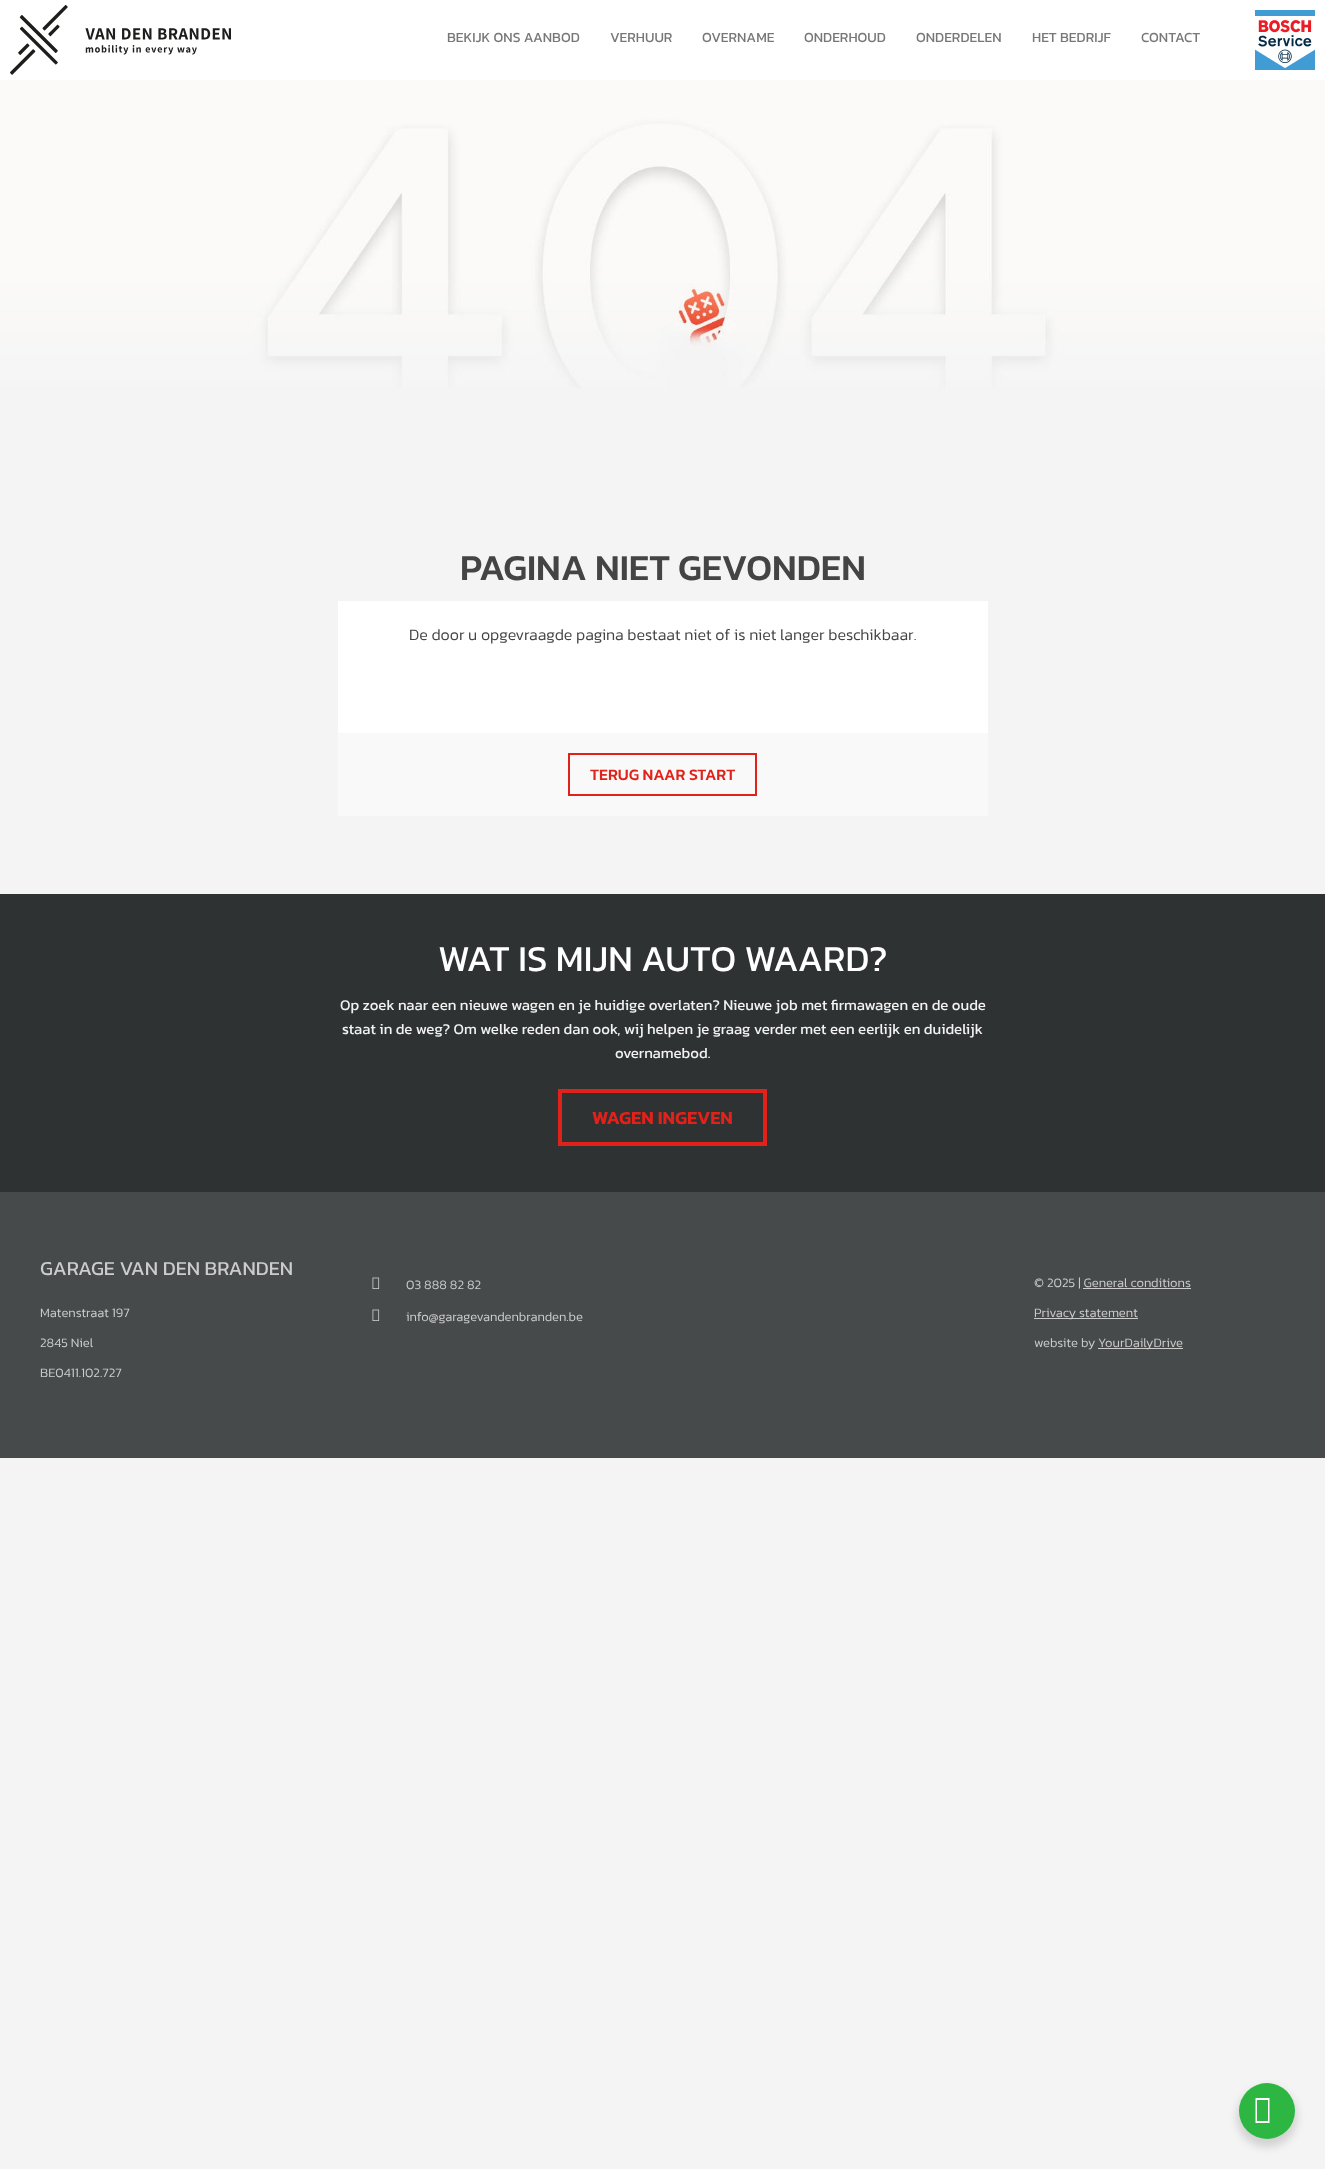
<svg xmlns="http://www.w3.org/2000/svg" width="1325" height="2169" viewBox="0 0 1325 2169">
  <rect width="100%" height="100%" fill="rgb(244,244,244)"/>
  <rect x="0" y="0" width="1325" height="80" fill="rgb(255,255,255)"/>
  <image x="10" y="5" width="221" height="70" href="pic1.png"/>
  <g font-family="Kanit" font-size="14" fill="rgb(119,119,119)">
    <text x="447" y="42">BEKIJK ONS AANBOD</text>
    <text x="610" y="42">VERHUUR</text>
    <text x="702" y="42">OVERNAME</text>
    <text x="804" y="42">ONDERHOUD</text>
    <text x="916" y="42">ONDERDELEN</text>
    <text x="1032" y="42">HET BEDRIJF</text>
    <text x="1141" y="42">CONTACT</text>
  </g>
  <image x="1255" y="10" width="60" height="60" href="pic2.png"/>
  <image x="0" y="80" width="1325" height="308" href="pic3.png"/>
  <text x="460" y="580" font-family="Kanit" font-size="36.75" font-weight="500" fill="rgb(68,68,68)">PAGINA NIET GEVONDEN</text>
  <rect x="338" y="601" width="650" height="132" fill="rgb(255,255,255)"/>
  <text x="409" y="640" font-family="Kanit" font-size="16" font-weight="300" fill="rgb(68,68,68)">De door u opgevraagde pagina bestaat niet of is niet langer beschikbaar.</text>
  <rect x="338" y="733" width="650" height="83" fill="rgb(249,249,249)"/>
  <rect x="569" y="754" width="187" height="41" fill="none" stroke="rgb(225,34,26)" stroke-width="2"/>
  <text x="590" y="780" font-family="Kanit" font-size="16" font-weight="500" fill="rgb(225,34,26)">TERUG NAAR START</text>
  <rect x="0" y="1192" width="1325" height="266" fill="rgb(71,74,74)"/>
  <rect x="0" y="894" width="1325" height="298" fill="rgb(47,50,50)"/>
  <text x="438" y="971" font-family="Kanit" font-size="36.75" fill="rgb(255,255,255)">WAT IS MIJN AUTO WAARD?</text>
  <g font-family="Kanit" font-size="15" fill="rgb(242,242,242)">
    <text x="340" y="1010">Op zoek naar een nieuwe wagen en je huidige overlaten? Nieuwe job met firmawagen en de oude</text>
    <text x="342" y="1034">staat in de weg? Om welke reden dan ook, wij helpen je graag verder met een eerlijk en duidelijk</text>
    <text x="615" y="1058">overnamebod.</text>
  </g>
  <rect x="560" y="1091" width="205" height="53" fill="none" stroke="rgb(225,34,26)" stroke-width="4"/>
  <text x="592" y="1124" font-family="Kanit" font-size="18.5" font-weight="600" fill="rgb(225,34,26)">WAGEN INGEVEN</text>
  <text x="40" y="1275" font-family="Kanit" font-size="20" fill="rgb(204,204,204)">GARAGE VAN DEN BRANDEN</text>
  <g font-family="Kanit" font-size="13" font-weight="300" fill="rgb(204,204,204)">
    <text x="40" y="1317">Matenstraat 197</text>
    <text x="40" y="1347">2845 Niel</text>
    <text x="40" y="1377">BE0411.102.727</text>
  </g>
  <image x="372" y="1277" width="8" height="12" href="pic4.png"/>
  <text x="406" y="1289" font-family="Kanit" font-size="13" font-weight="300" fill="rgb(204,204,204)">03 888 82 82</text>
  <image x="372" y="1309" width="8" height="12" href="pic4.png"/>
  <g font-family="Kanit" font-size="13" font-weight="300" fill="rgb(204,204,204)">
    <text x="406" y="1321">info@garagevandenbranden.be</text>
    <text x="1034" y="1287">© 2025 | General conditions</text>
  </g>
  <rect x="1083" y="1288" width="108" height="1" fill="rgb(204,204,204)"/>
  <rect x="1034" y="1318" width="104" height="1" fill="rgb(204,204,204)"/>
  <g font-family="Kanit" font-size="13" font-weight="300" fill="rgb(204,204,204)">
    <text x="1034" y="1317">Privacy statement</text>
    <text x="1034" y="1347">website by</text>
  </g>
  <rect x="1098" y="1348" width="85" height="1" fill="rgb(204,204,204)"/>
  <text x="1098" y="1347" font-family="Kanit" font-size="13" font-weight="300" fill="rgb(204,204,204)">YourDailyDrive</text>
  <rect x="1237" y="2087" width="60" height="60" rx="30" fill="rgba(0,0,0,0.14)" filter="blur(4px)"/>
  <circle cx="1267" cy="2111" r="28" fill="rgb(45,183,66)"/>
  <path d="M1255.5 2123V2098H1269.5V2123ZM1257 2121H1268V2100H1257Z" fill="rgb(255,255,255)"/>
</svg>
